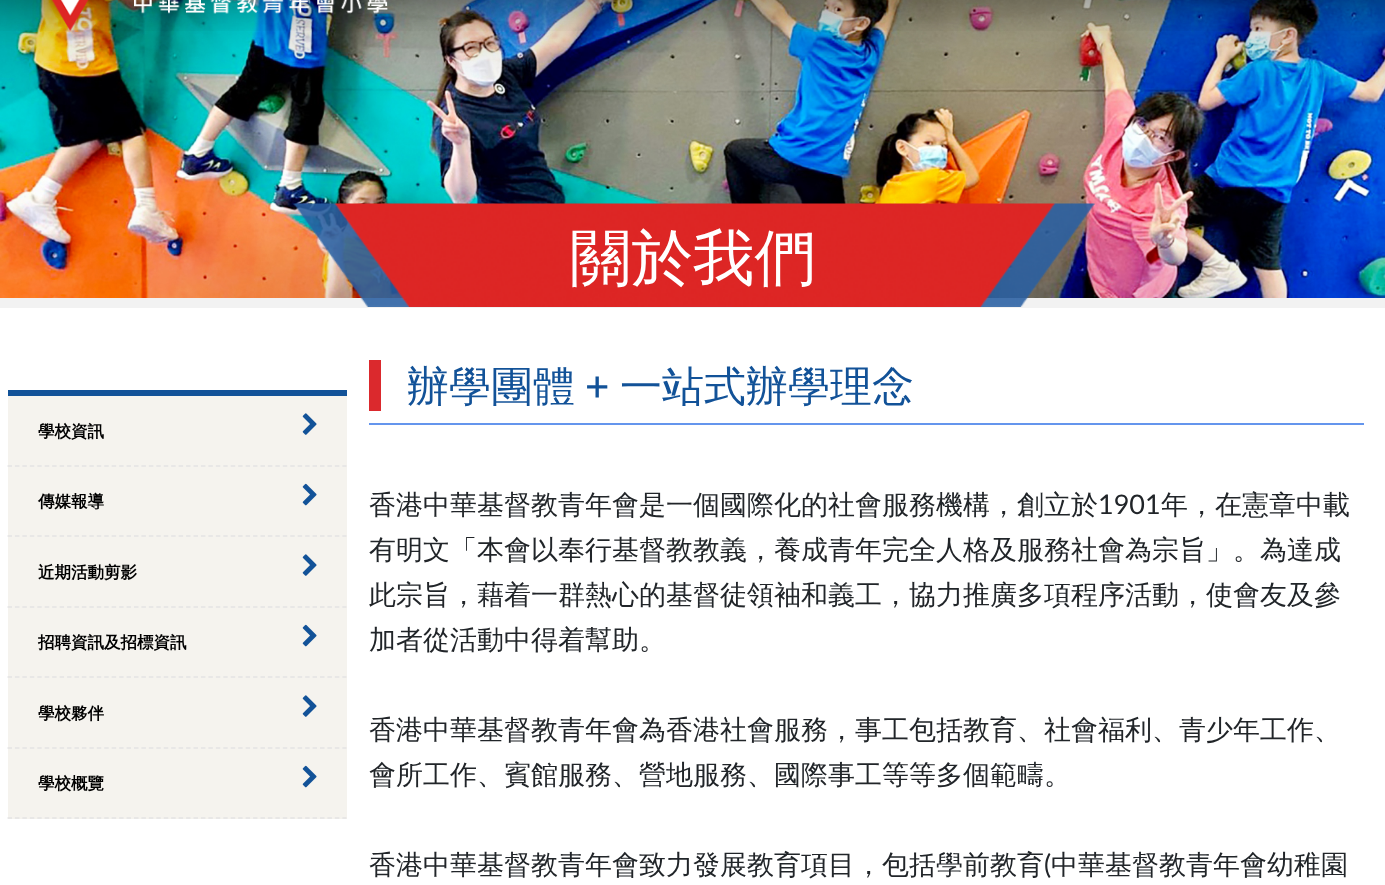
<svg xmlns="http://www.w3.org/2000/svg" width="1385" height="885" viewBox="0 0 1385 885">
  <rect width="100%" height="100%" fill="rgb(255,255,255)"/>
  <image x="0" y="0" width="1385" height="298" href="pic3.png"/>
  <image x="0" y="0" width="1385" height="31" href="pic1.png"/>
  <image x="51" y="0" width="337" height="31" href="pic2.png"/>
  <rect x="0" y="298" width="1385" height="10" fill="rgb(242,242,242)"/>
  <image x="293" y="203" width="802" height="104" href="pic4.png"/>
  <text x="570" y="279" font-family="WenQuanYi Zen Hei" font-size="61.5" font-weight="500" fill="rgb(255,255,255)">關於我們</text>
  <rect x="8" y="396" width="339" height="423" fill="rgb(245,243,238)"/>
  <rect x="8" y="390" width="339" height="6" fill="rgb(18,82,152)"/>
  <path d="M7.5 466H346.5" fill="none" stroke="rgb(228,228,228)" stroke-width="1.5" stroke-dasharray="4.5 2.94"/>
  <text x="38" y="437" font-family="WenQuanYi Zen Hei" font-size="16.5" font-weight="bold" fill="rgb(0,0,0)">學校資訊</text>
  <image x="302" y="413" width="15" height="22" href="pic5.png"/>
  <path d="M7.5 536H346.5" fill="none" stroke="rgb(228,228,228)" stroke-width="1.5" stroke-dasharray="4.5 2.94"/>
  <text x="38" y="507" font-family="WenQuanYi Zen Hei" font-size="16.5" font-weight="bold" fill="rgb(0,0,0)">傳媒報導</text>
  <image x="302" y="483" width="15" height="23" href="pic6.png"/>
  <path d="M7.5 607H346.5" fill="none" stroke="rgb(228,228,228)" stroke-width="1.5" stroke-dasharray="4.5 2.94"/>
  <text x="38" y="578" font-family="WenQuanYi Zen Hei" font-size="16.5" font-weight="bold" fill="rgb(0,0,0)">近期活動剪影</text>
  <image x="302" y="554" width="15" height="22" href="pic5.png"/>
  <path d="M7.5 677H346.5" fill="none" stroke="rgb(228,228,228)" stroke-width="1.5" stroke-dasharray="4.5 2.94"/>
  <text x="38" y="648" font-family="WenQuanYi Zen Hei" font-size="16.5" font-weight="bold" fill="rgb(0,0,0)">招聘資訊及招標資訊</text>
  <image x="302" y="624" width="15" height="23" href="pic6.png"/>
  <path d="M7.5 748H346.5" fill="none" stroke="rgb(228,228,228)" stroke-width="1.5" stroke-dasharray="4.5 2.94"/>
  <text x="38" y="719" font-family="WenQuanYi Zen Hei" font-size="16.5" font-weight="bold" fill="rgb(0,0,0)">學校夥伴</text>
  <image x="302" y="695" width="15" height="22" href="pic5.png"/>
  <path d="M7.5 818H346.5" fill="none" stroke="rgb(228,228,228)" stroke-width="1.5" stroke-dasharray="4.5 2.94"/>
  <text x="38" y="789" font-family="WenQuanYi Zen Hei" font-size="16.5" font-weight="bold" fill="rgb(0,0,0)">學校概覽</text>
  <image x="302" y="765" width="15" height="23" href="pic6.png"/>
  <rect x="369" y="423" width="995" height="2" fill="rgb(100,149,237)"/>
  <rect x="369" y="360" width="12" height="51" fill="rgb(219,41,45)"/>
  <text x="407" y="401" font-family="WenQuanYi Zen Hei" font-size="42" font-weight="500" fill="rgb(18,82,152)">辦學團體</text>
  <text x="585" y="401" font-family="Lato" font-size="42" font-weight="500" fill="rgb(18,82,152)">+</text>
  <text x="620" y="401" font-family="WenQuanYi Zen Hei" font-size="42" font-weight="500" fill="rgb(18,82,152)">一站式辦學理念</text>
  <text x="369" y="514" font-family="WenQuanYi Zen Hei" font-size="27" font-weight="500" fill="rgb(33,37,41)">香港中華基督教青年會是一個國際化的社會服務機構，創立於</text>
  <text x="1098" y="514" font-family="Lato" font-size="27" fill="rgb(33,37,41)">1901</text>
  <g font-family="WenQuanYi Zen Hei" font-size="27" font-weight="500" fill="rgb(33,37,41)">
    <text x="1161" y="514">年，在憲章中載</text>
    <text>
      <tspan x="369" y="559">有明文「本會以奉行基督教教義，養成青年完全人格及服務社會為宗旨」。為達成</tspan>
      <tspan x="369" y="604">此宗旨，藉着一群熱心的基督徒領袖和義工，協力推廣多項程序活動，使會友及參</tspan>
      <tspan x="369" y="649">加者從活動中得着幫助。</tspan>
    </text>
    <text>
      <tspan x="369" y="739">香港中華基督教青年會為香港社會服務，事工包括教育、社會福利、青少年工作、</tspan>
      <tspan x="369" y="784">會所工作、賓館服務、營地服務、國際事工等等多個範疇。</tspan>
    </text>
    <text x="369" y="874">香港中華基督教青年會致力發展教育項目，包括學前教育</text>
  </g>
  <text x="1044" y="874" font-family="Lato" font-size="27" fill="rgb(33,37,41)">(</text>
  <text x="1051" y="874" font-family="WenQuanYi Zen Hei" font-size="27" font-weight="500" fill="rgb(33,37,41)">中華基督教青年會幼稚園</text>
</svg>
